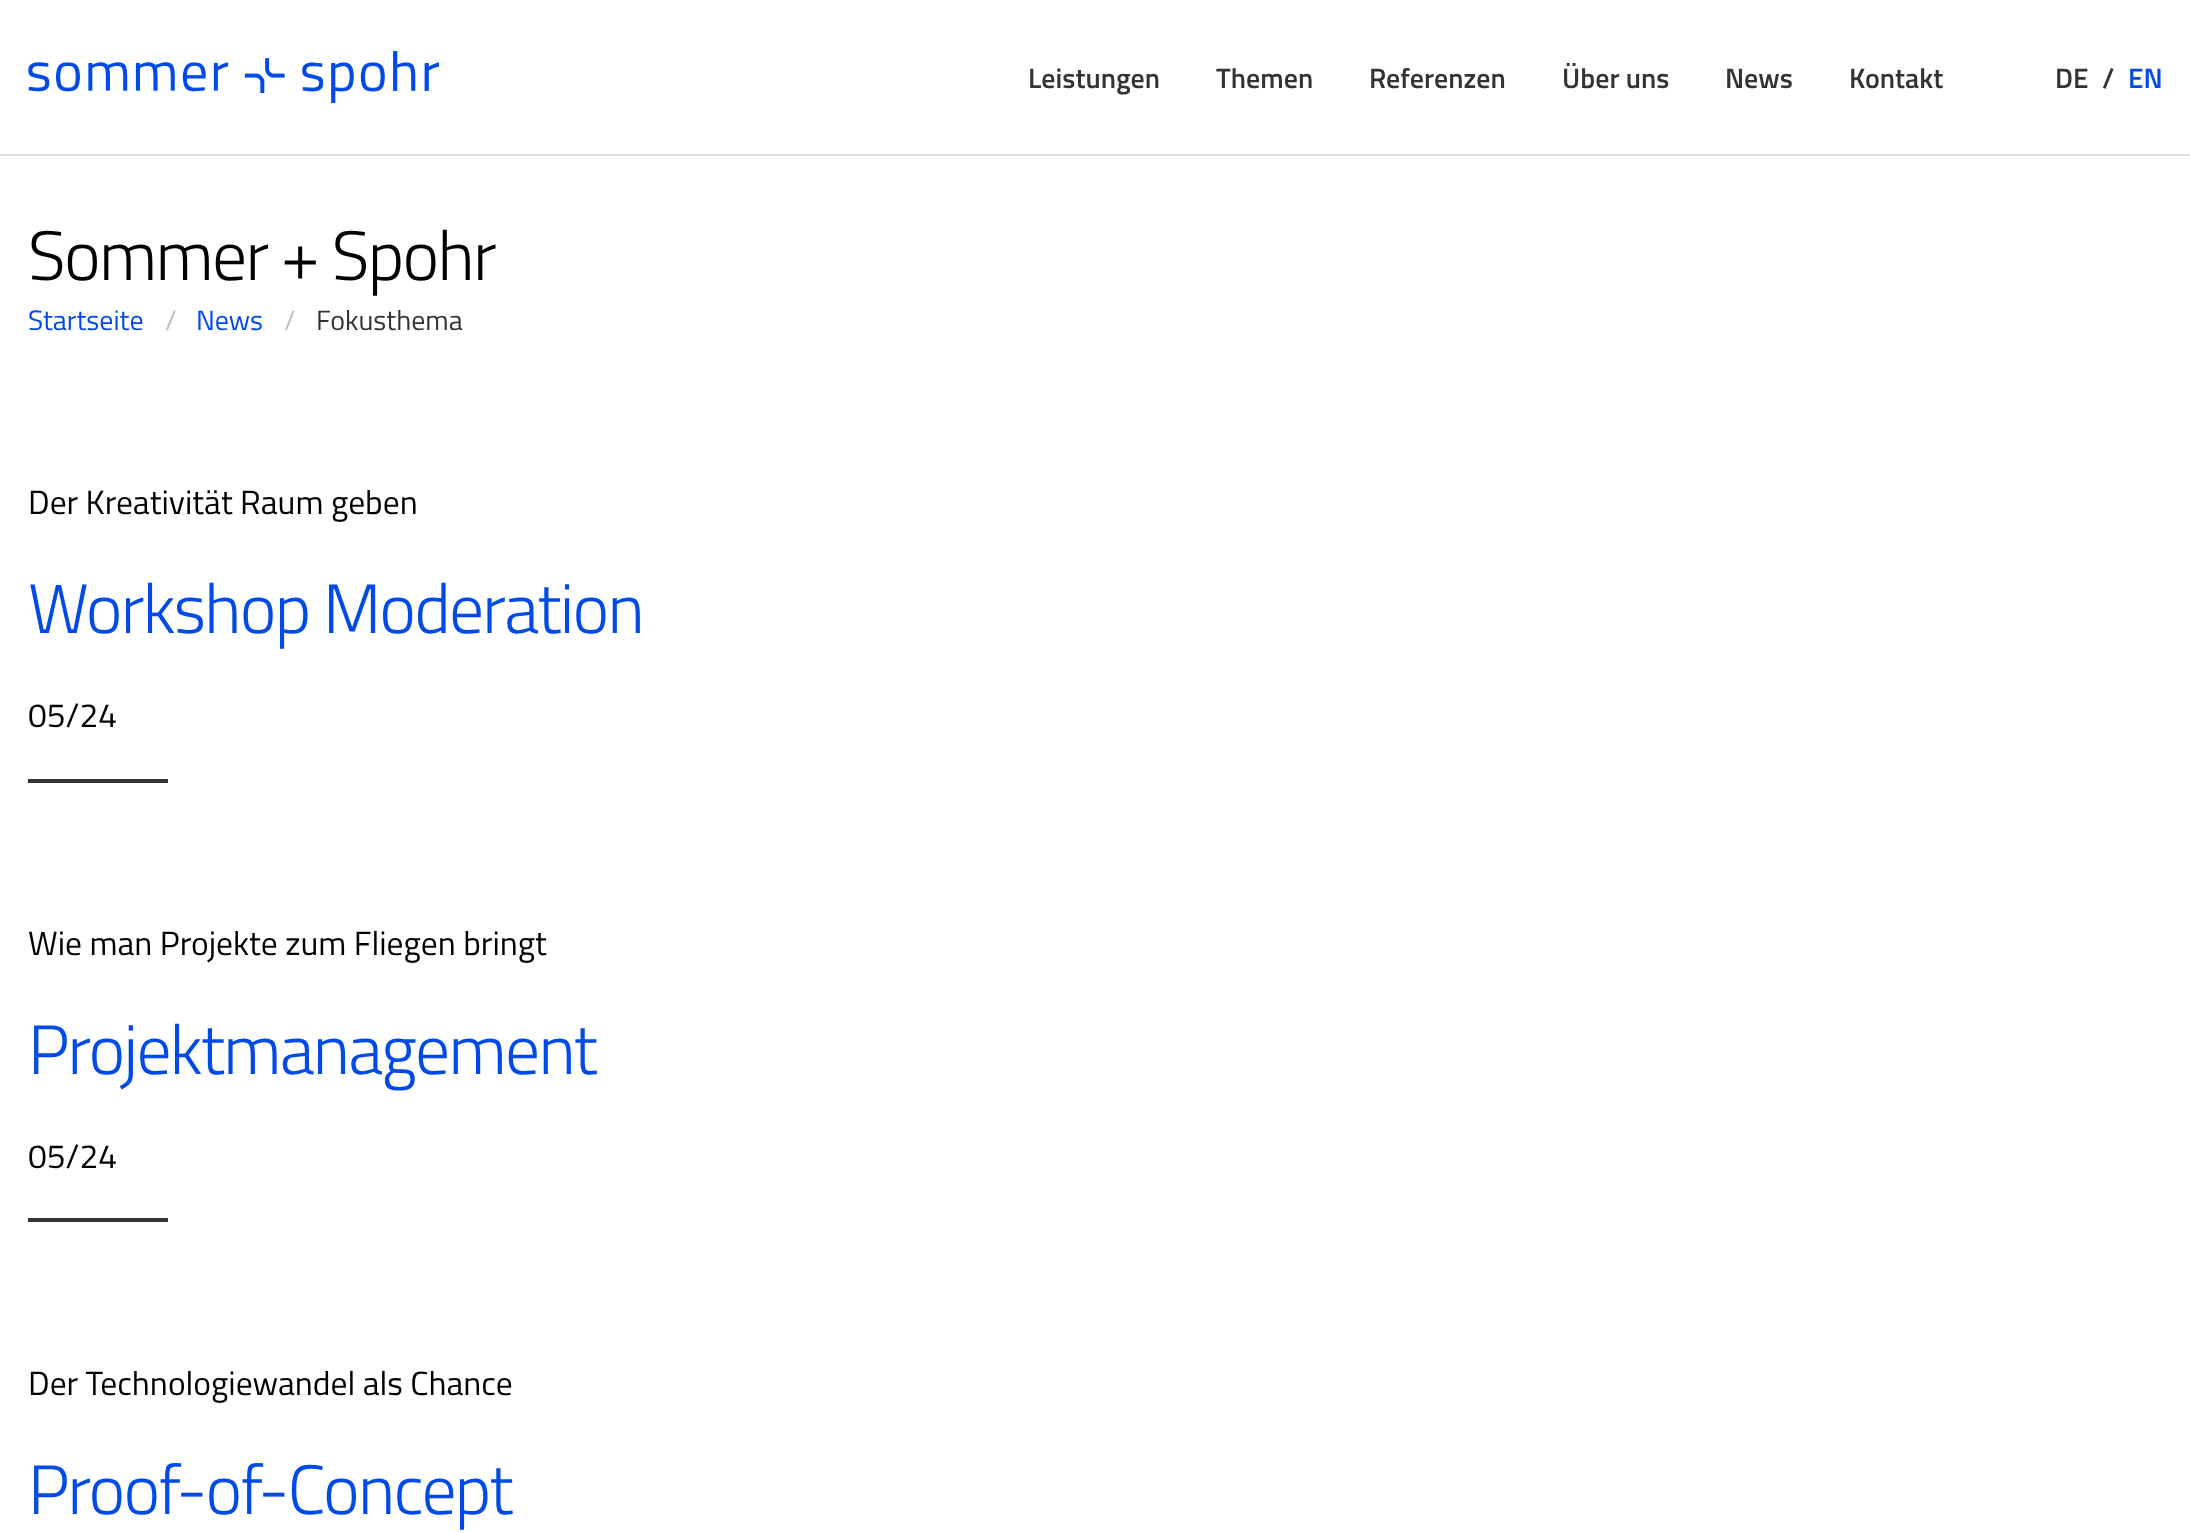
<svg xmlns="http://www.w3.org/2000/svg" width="2190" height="1533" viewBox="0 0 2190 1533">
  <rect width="100%" height="100%" fill="rgb(255,255,255)"/>
  <rect x="0" y="154" width="2190" height="2" fill="rgb(227,222,222)"/>
  <image x="28" y="51" width="411" height="52" href="pic1.png"/>
  <g font-family="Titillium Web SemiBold" font-size="28" font-weight="600" fill="rgb(51,51,51)">
    <text x="1028" y="88">Leistungen</text>
    <text x="1216" y="88">Themen</text>
    <text x="1369" y="88">Referenzen</text>
    <text x="1562" y="88">Über uns</text>
    <text x="1725" y="88">News</text>
    <text x="1849" y="88">Kontakt</text>
    <text x="2055" y="88">DE</text>
    <text x="2102" y="88">/</text>
  </g>
  <text x="2128" y="88" font-family="Titillium Web SemiBold" font-size="28" font-weight="600" fill="rgb(0,74,232)">EN</text>
  <text x="28" y="280" font-family="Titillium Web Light" font-size="69.75" font-weight="300" letter-spacing="-1.75" fill="rgb(0,0,0)">Sommer + Spohr</text>
  <text x="28" y="330" font-family="Titillium Web" font-size="28" fill="rgb(0,74,232)">Startseite</text>
  <text x="165" y="330" font-family="Titillium Web" font-size="28" fill="rgb(191,191,191)">/</text>
  <text x="196" y="330" font-family="Titillium Web" font-size="28" fill="rgb(0,74,232)">News</text>
  <text x="284" y="330" font-family="Titillium Web" font-size="28" fill="rgb(191,191,191)">/</text>
  <text x="316" y="330" font-family="Titillium Web" font-size="28" fill="rgb(51,51,51)">Fokusthema</text>
  <text x="28" y="514" font-family="Titillium Web" font-size="33.6" fill="rgb(0,0,0)">Der Kreativität Raum geben</text>
  <text x="28" y="633" font-family="Titillium Web Light" font-size="69.75" font-weight="300" letter-spacing="-1.75" fill="rgb(0,74,232)">Workshop Moderation</text>
  <text x="28" y="727" font-family="Titillium Web" font-size="33.6" fill="rgb(0,0,0)">05/24</text>
  <rect x="28" y="779" width="140" height="4" fill="rgb(51,51,51)"/>
  <text x="28" y="955" font-family="Titillium Web" font-size="33.6" fill="rgb(0,0,0)">Wie man Projekte zum Fliegen bringt</text>
  <text x="28" y="1074" font-family="Titillium Web Light" font-size="69.75" font-weight="300" letter-spacing="-1.75" fill="rgb(0,74,232)">Projektmanagement</text>
  <text x="28" y="1168" font-family="Titillium Web" font-size="33.6" fill="rgb(0,0,0)">05/24</text>
  <rect x="28" y="1218" width="140" height="4" fill="rgb(51,51,51)"/>
  <text x="28" y="1395" font-family="Titillium Web" font-size="33.6" fill="rgb(0,0,0)">Der Technologiewandel als Chance</text>
  <text x="28" y="1514" font-family="Titillium Web Light" font-size="69.75" font-weight="300" letter-spacing="-1.75" fill="rgb(0,74,232)">Proof-of-Concept</text>
</svg>
